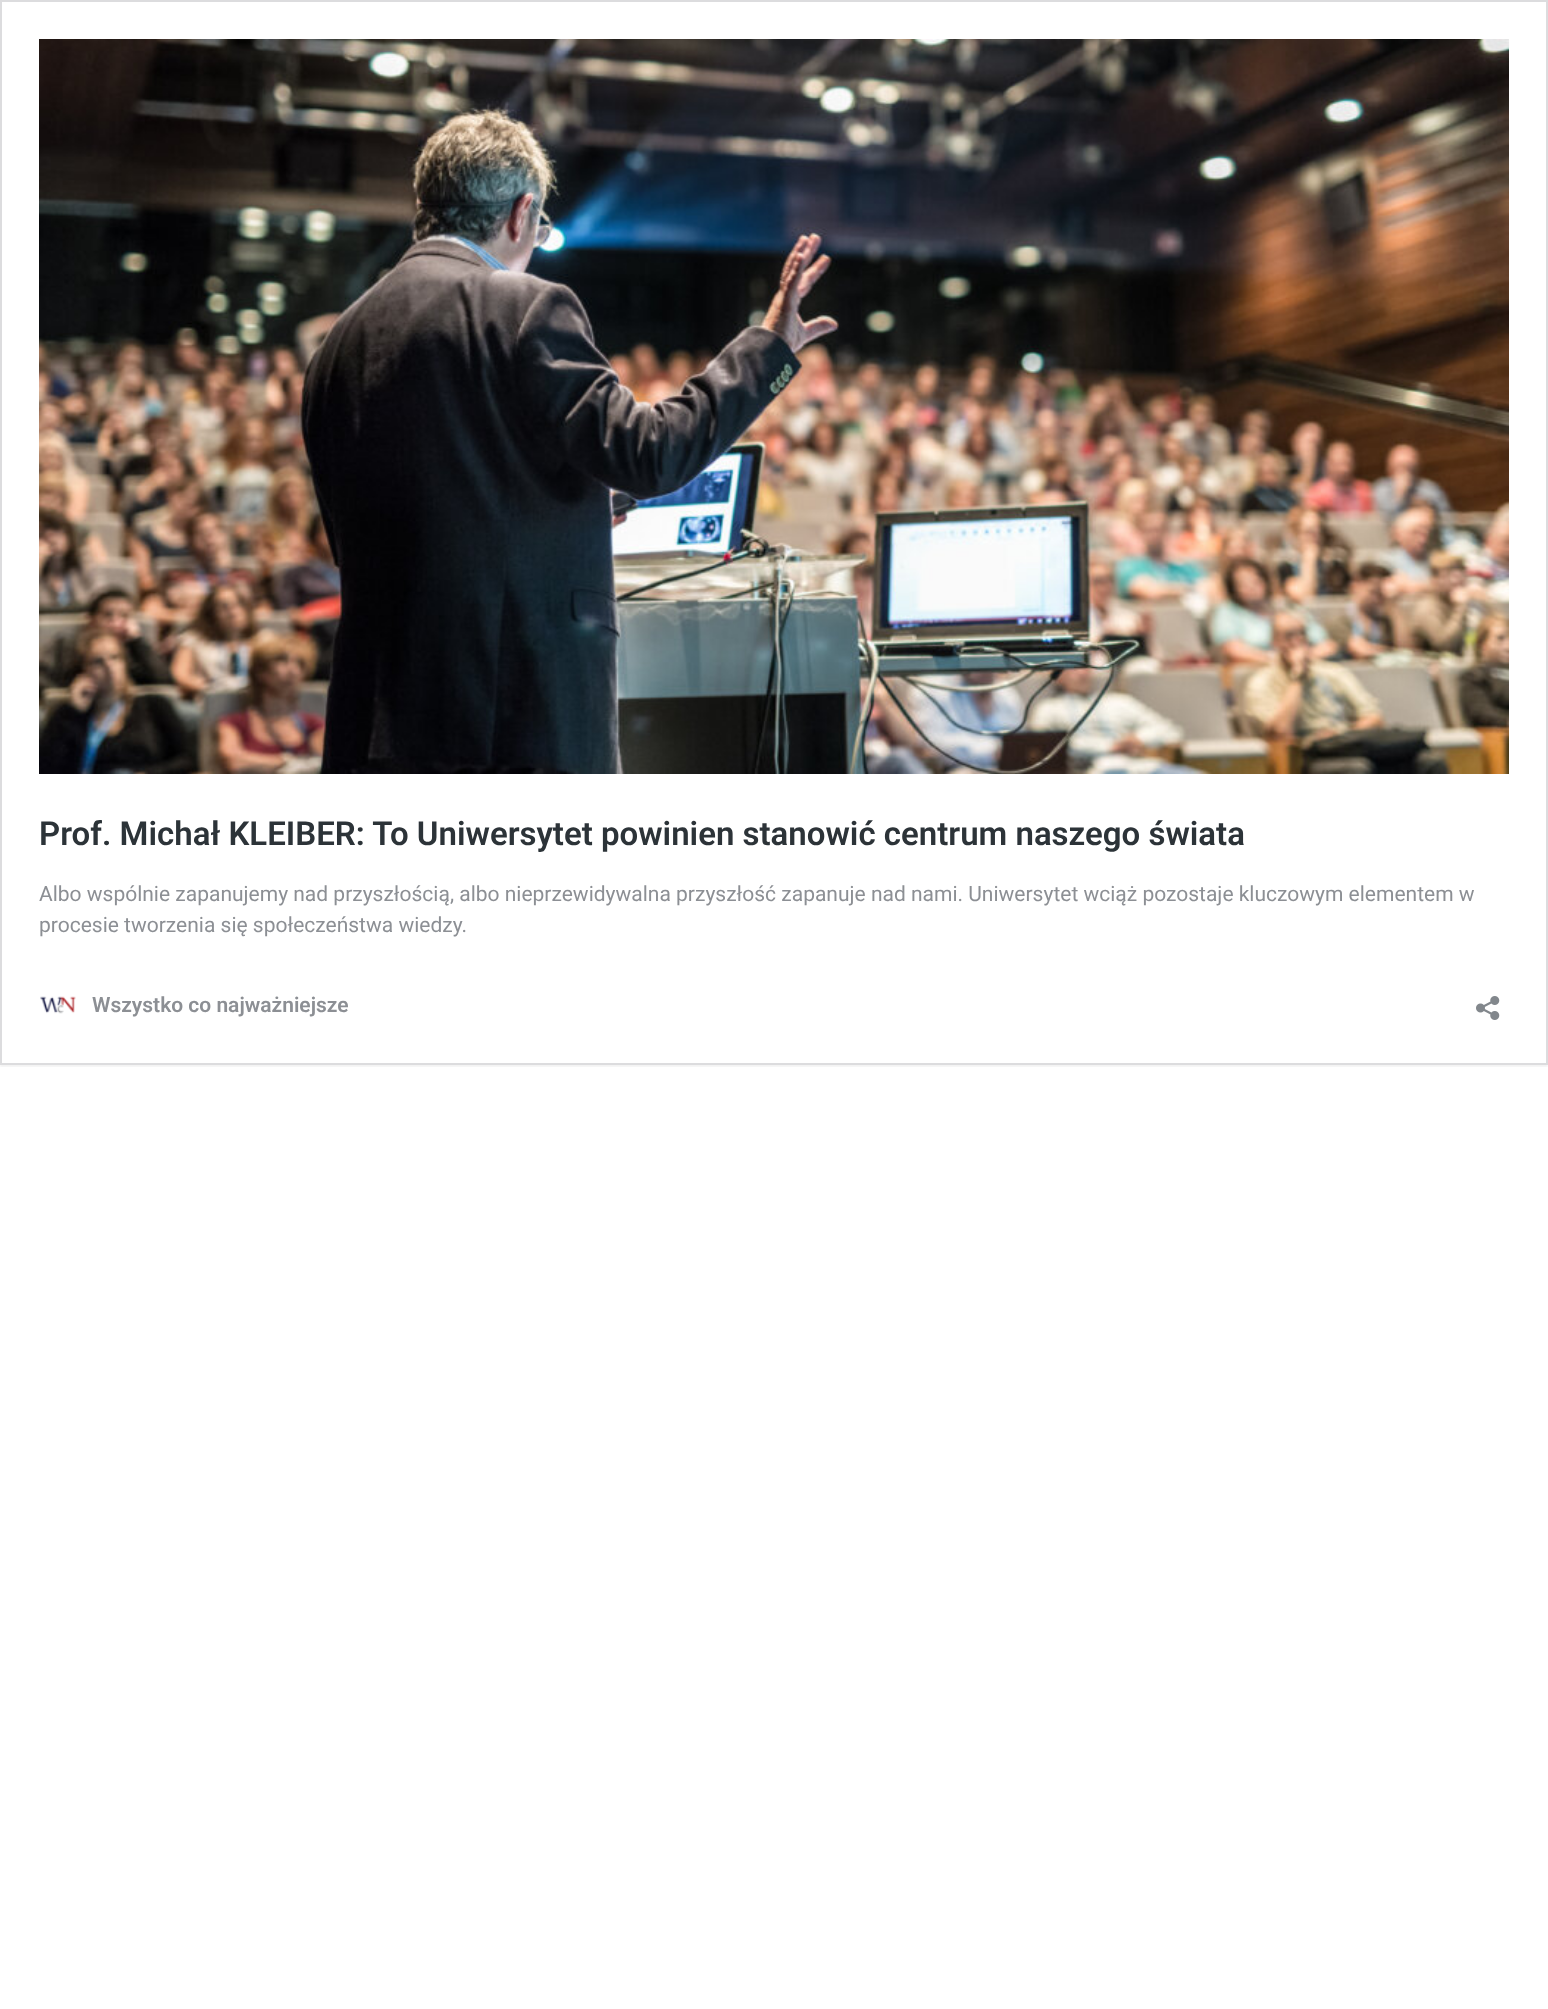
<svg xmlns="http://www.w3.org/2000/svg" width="1548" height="2009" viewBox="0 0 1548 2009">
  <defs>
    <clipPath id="clip1"><rect x="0" y="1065" width="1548" height="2"/></clipPath>
  </defs>
  <rect width="100%" height="100%" fill="rgb(255,255,255)"/>
  <g clip-path="url(#clip1)">
    <rect x="0" y="2" width="1548" height="1065" fill="rgba(0,0,0,0.05)" filter="blur(1px)"/>
  </g>
  <rect x="1" y="1" width="1546" height="1063" fill="none" stroke="rgb(220,220,222)" stroke-width="2"/>
  <image x="39" y="39" width="1470" height="735" href="pic1.png"/>
  <text x="39" y="845" font-family="Roboto" font-size="33" font-weight="600" fill="rgb(44,51,56)">Prof. Michał KLEIBER: To Uniwersytet powinien stanowić centrum naszego świata</text>
  <g font-family="Roboto" font-size="21" fill="rgb(140,143,148)">
    <text>
      <tspan x="39" y="901">Albo wspólnie zapanujemy nad przyszłością, albo nieprzewidywalna przyszłość zapanuje nad nami. Uniwersytet wciąż pozostaje kluczowym elementem w</tspan>
      <tspan x="39" y="932">procesie tworzenia się społeczeństwa wiedzy.</tspan>
    </text>
  </g>
  <image x="40" y="996" width="36" height="18" href="pic2.png"/>
  <text x="92" y="1012" font-family="Roboto" font-size="21" font-weight="600" fill="rgb(140,143,148)">Wszystko co najważniejsze</text>
  <image x="1476" y="996" width="24" height="24" href="pic3.png"/>
</svg>
